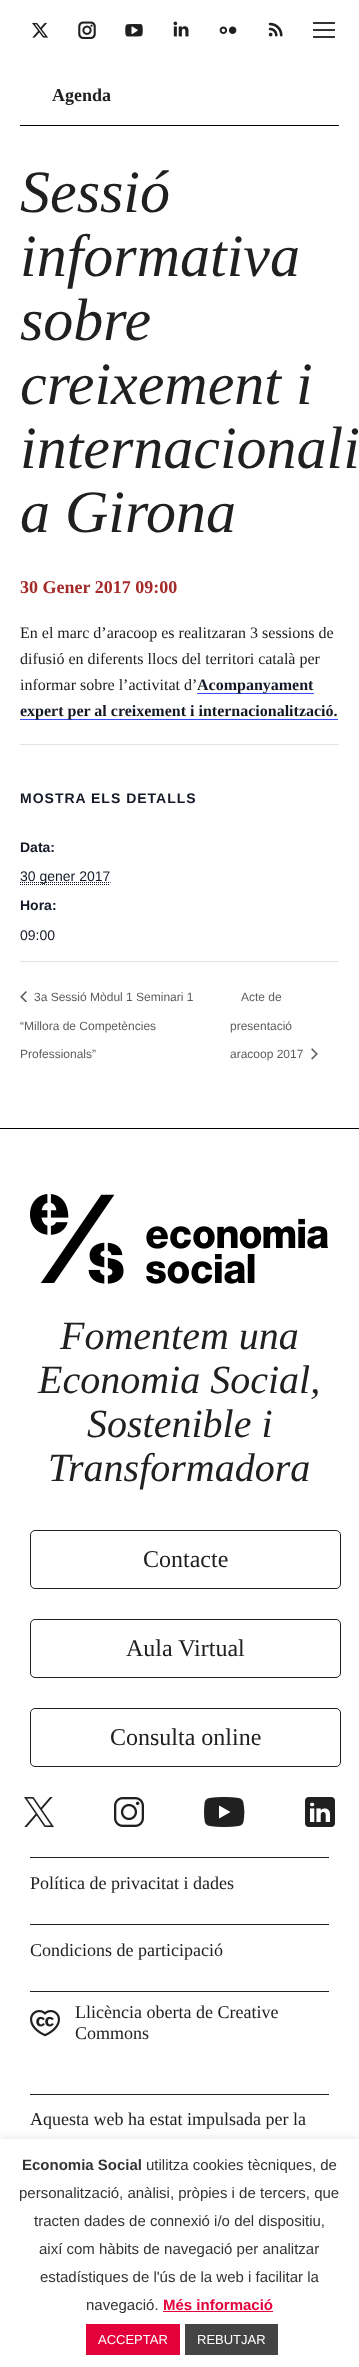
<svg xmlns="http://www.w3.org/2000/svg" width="359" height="2367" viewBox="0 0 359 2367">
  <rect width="100%" height="100%" fill="rgb(255,255,255)"/>
  <image x="32" y="22" width="16" height="16" href="pic1.png"/>
  <image x="78" y="21" width="18" height="18" href="pic2.png"/>
  <image x="125" y="24" width="18" height="13" href="pic3.png"/>
  <image x="173" y="21" width="16" height="16" href="pic4.png"/>
  <image x="219" y="26" width="18" height="8" href="pic5.png"/>
  <image x="268" y="22" width="15" height="15" href="pic6.png"/>
  <rect x="313" y="22" width="22" height="2" fill="rgb(51,51,51)"/>
  <rect x="313" y="29" width="22" height="2" fill="rgb(51,51,51)"/>
  <rect x="313" y="36" width="22" height="2" fill="rgb(51,51,51)"/>
  <rect x="20" y="125" width="319" height="1" fill="rgb(0,0,0)"/>
  <text x="52" y="101" font-family="Liberation Serif" font-size="18" font-weight="bold" fill="rgb(32,32,32)">Agenda</text>
  <g font-family="Liberation Serif" font-size="60" font-style="italic" fill="rgb(32,32,32)">
    <text>
      <tspan x="20" y="212">Sessió</tspan>
      <tspan x="20" y="276">informativa</tspan>
      <tspan x="20" y="340">sobre</tspan>
      <tspan x="20" y="404">creixement i</tspan>
      <tspan x="20" y="468">internacionali</tspan>
      <tspan x="20" y="532">a Girona</tspan>
    </text>
  </g>
  <text x="20" y="593" font-family="Liberation Serif" font-size="18" font-weight="bold" fill="rgb(165,42,42)">30 Gener 2017 09:00</text>
  <g font-family="Liberation Serif" font-size="16" fill="rgb(32,32,32)">
    <text>
      <tspan x="20" y="638">En el marc d’aracoop es realitzaran 3 sessions de</tspan>
      <tspan x="20" y="664">difusió en diferents llocs del territori català per</tspan>
      <tspan x="20" y="690">informar sobre l’activitat d’</tspan>
    </text>
  </g>
  <rect x="197" y="693" width="117" height="1" fill="rgb(51,74,255)"/>
  <text x="197" y="690" font-family="Liberation Serif" font-size="16" font-weight="bold" fill="rgb(20,24,39)">Acompanyament</text>
  <rect x="20" y="719" width="318" height="1" fill="rgb(51,74,255)"/>
  <text x="20" y="716" font-family="Liberation Serif" font-size="16" font-weight="bold" fill="rgb(20,24,39)">expert per al creixement i internacionalització.</text>
  <rect x="20" y="744" width="319" height="1" fill="rgb(228,228,228)"/>
  <text x="20" y="803" font-family="Liberation Sans" font-size="14" font-weight="bold" letter-spacing="1" fill="rgb(20,24,39)">MOSTRA ELS DETALLS</text>
  <text x="20" y="852" font-family="Liberation Sans" font-size="14" font-weight="bold" fill="rgb(20,24,39)">Data:</text>
  <path d="M20 882.5H110.5" fill="none" stroke="rgb(20,24,39)" stroke-dasharray="1 1"/>
  <text x="20" y="881" font-family="Liberation Sans" font-size="14" fill="rgb(20,24,39)">30 gener 2017</text>
  <path d="M20 884.5H110" fill="none" stroke="rgb(20,24,39)" stroke-dasharray="1 1"/>
  <text x="20" y="910" font-family="Liberation Sans" font-size="14" font-weight="bold" fill="rgb(20,24,39)">Hora:</text>
  <text x="20" y="940" font-family="Liberation Sans" font-size="14" fill="rgb(20,24,39)">09:00</text>
  <rect x="20" y="961" width="319" height="1" fill="rgb(228,228,228)"/>
  <image x="20" y="991" width="7" height="11" href="pic7.png"/>
  <g font-family="Liberation Sans" font-size="12" fill="rgb(93,93,93)">
    <text x="34" y="1001">3a Sessió Mòdul 1 Seminari 1</text>
    <text x="20" y="1030">“Millora de Competències</text>
    <text x="20" y="1058">Professionals”</text>
    <text x="241" y="1001">Acte de</text>
    <text x="230" y="1030">presentació</text>
    <text x="230" y="1058">aracoop 2017</text>
  </g>
  <image x="311" y="1048" width="7" height="12" href="pic8.png"/>
  <rect x="0" y="1128" width="359" height="1" fill="rgb(0,0,0)"/>
  <image x="30" y="1194" width="298" height="90" href="pic9.png"/>
  <g font-family="Liberation Serif" font-size="40" font-style="italic" fill="rgb(32,32,32)">
    <text x="60" y="1349">Fomentem una</text>
    <text x="38" y="1393">Economia Social,</text>
    <text x="87" y="1437">Sostenible i</text>
    <text x="48" y="1481">Transformadora</text>
  </g>
  <rect x="30.5" y="1530.5" width="310" height="58" rx="4.5" fill="none" stroke="rgb(32,32,32)"/>
  <text x="143" y="1567" font-family="Liberation Serif" font-size="24" fill="rgb(32,32,32)">Contacte</text>
  <rect x="30.5" y="1619.5" width="310" height="58" rx="4.5" fill="none" stroke="rgb(32,32,32)"/>
  <text x="126" y="1656" font-family="Liberation Serif" font-size="24" fill="rgb(32,32,32)">Aula Virtual</text>
  <rect x="30.5" y="1708.5" width="310" height="58" rx="4.5" fill="none" stroke="rgb(32,32,32)"/>
  <text x="110" y="1745" font-family="Liberation Serif" font-size="24" fill="rgb(32,32,32)">Consulta online</text>
  <image x="24" y="1797" width="30" height="30" href="pic10.png"/>
  <image x="114" y="1797" width="30" height="30" href="pic11.png"/>
  <image x="204" y="1797" width="41" height="30" href="pic12.png"/>
  <image x="305" y="1797" width="30" height="30" href="pic13.png"/>
  <rect x="30" y="1857" width="299" height="1" fill="rgb(32,32,32)"/>
  <text x="30" y="1889" font-family="Liberation Serif" font-size="18" fill="rgb(32,32,32)">Política de privacitat i dades</text>
  <rect x="30" y="1924" width="299" height="1" fill="rgb(32,32,32)"/>
  <text x="30" y="1956" font-family="Liberation Serif" font-size="18" fill="rgb(32,32,32)">Condicions de participació</text>
  <rect x="30" y="1991" width="299" height="1" fill="rgb(32,32,32)"/>
  <image x="30" y="2010" width="30" height="27" href="pic14.png"/>
  <g font-family="Liberation Serif" font-size="18" fill="rgb(32,32,32)">
    <text>
      <tspan x="75" y="2018">Llicència oberta de Creative</tspan>
      <tspan x="75" y="2039">Commons</tspan>
    </text>
  </g>
  <rect x="30" y="2094" width="299" height="1" fill="rgb(32,32,32)"/>
  <text x="30" y="2125" font-family="Liberation Serif" font-size="18" fill="rgb(32,32,32)">Aquesta web ha estat impulsada per la</text>
  <rect x="0" y="2138" width="359" height="228" fill="rgba(172,171,171,0.3)" filter="blur(5px)"/>
  <rect x="0" y="2139" width="359" height="228" fill="rgb(255,255,255)"/>
  <text x="22" y="2170" font-family="Liberation Sans" font-size="15" font-weight="bold" fill="rgb(51,51,51)">Economia Social</text>
  <g font-family="Liberation Sans" font-size="15" fill="rgb(51,51,51)">
    <text x="146" y="2170">utilitza cookies tècniques, de</text>
    <text x="19" y="2198">personalització, anàlisi, pròpies i de tercers, que</text>
    <text x="34" y="2226">tracten dades de connexió i/o del dispositiu,</text>
    <text x="39" y="2254">així com hàbits de navegació per analitzar</text>
    <text x="40" y="2282">estadístiques de l'ús de la web i facilitar la</text>
    <text x="86" y="2310">navegació.</text>
  </g>
  <text x="163" y="2310" font-family="Liberation Sans" font-size="15" font-weight="bold" fill="rgb(228,0,59)">Més informació</text>
  <rect x="163" y="2311" width="110" height="1" fill="rgb(228,0,59)"/>
  <rect x="86" y="2324" width="94" height="31" fill="rgb(228,0,59)"/>
  <text x="98" y="2344" font-family="Liberation Sans" font-size="13" fill="rgb(255,255,255)">ACCEPTAR</text>
  <rect x="185" y="2324" width="93" height="31" fill="rgb(68,68,68)"/>
  <text x="197" y="2344" font-family="Liberation Sans" font-size="13" fill="rgb(255,255,255)">REBUTJAR</text>
</svg>
